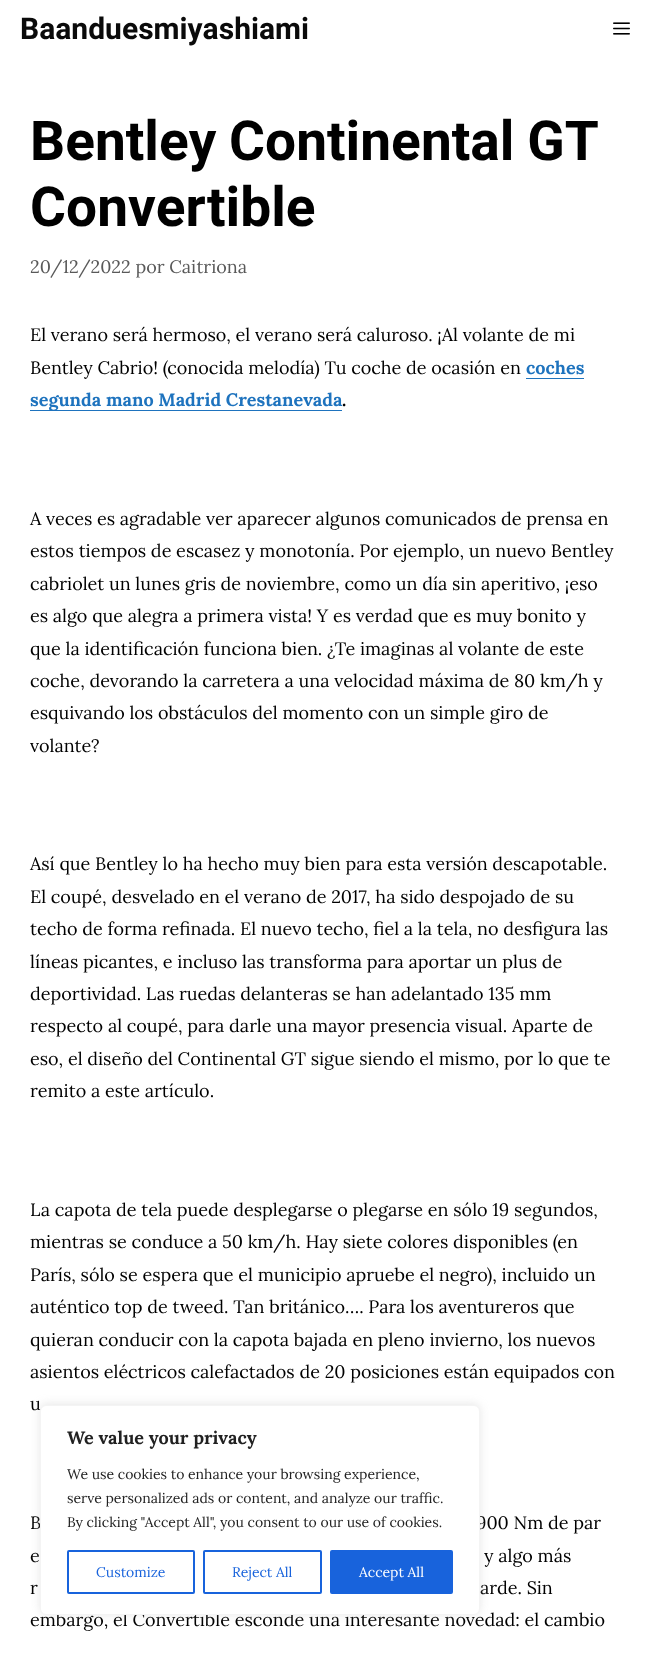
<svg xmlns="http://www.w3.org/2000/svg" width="650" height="1655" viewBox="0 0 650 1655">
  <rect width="100%" height="100%" fill="rgb(255,255,255)"/>
  <text x="20" y="39" font-family="Heebo" font-size="30" font-weight="bold" fill="rgb(10,10,10)">Baanduesmiyashiami</text>
  <image x="613" y="22" width="17" height="13" href="pic1.png"/>
  <g font-family="Heebo" font-size="55" font-weight="bold" fill="rgb(0,0,0)">
    <text>
      <tspan x="30" y="160" word-spacing="-1">Bentley Continental GT</tspan>
      <tspan x="30" y="226">Convertible</tspan>
    </text>
  </g>
  <text x="30" y="273" font-family="Lora" font-size="18" fill="rgb(89,89,89)">20/12/2022 por Caitriona</text>
  <g font-family="Lora" font-size="18" fill="rgb(0,0,0)">
    <text>
      <tspan x="30" y="341">El verano será hermoso, el verano será caluroso. ¡Al volante de mi</tspan>
      <tspan x="30" y="374">Bentley Cabrio! (conocida melodía) Tu coche de ocasión en</tspan>
    </text>
  </g>
  <text x="526" y="374" font-family="Lora" font-size="18" font-weight="bold" fill="rgb(30,115,190)">coches</text>
  <rect x="526" y="378" width="58" height="1" fill="rgb(30,115,190)"/>
  <rect x="30" y="410" width="312" height="1" fill="rgb(30,115,190)"/>
  <text x="30" y="406" font-family="Lora" font-size="18" font-weight="bold" fill="rgb(30,115,190)">segunda mano Madrid Crestanevada</text>
  <text x="342" y="406" font-family="Lora" font-size="18" font-weight="bold" fill="rgb(0,0,0)">.</text>
  <g font-family="Lora" font-size="18" fill="rgb(0,0,0)">
    <text>
      <tspan x="30" y="525">A veces es agradable ver aparecer algunos comunicados de prensa en</tspan>
      <tspan x="30" y="557">estos tiempos de escasez y monotonía. Por ejemplo, un nuevo Bentley</tspan>
      <tspan x="30" y="590">cabriolet un lunes gris de noviembre, como un día sin aperitivo, ¡eso</tspan>
      <tspan x="30" y="622">es algo que alegra a primera vista! Y es verdad que es muy bonito y</tspan>
      <tspan x="30" y="655">que la identificación funciona bien. ¿Te imaginas al volante de este</tspan>
      <tspan x="30" y="687">coche, devorando la carretera a una velocidad máxima de 80 km/h y</tspan>
      <tspan x="30" y="719">esquivando los obstáculos del momento con un simple giro de</tspan>
      <tspan x="30" y="752">volante?</tspan>
    </text>
    <text>
      <tspan x="30" y="870">Así que Bentley lo ha hecho muy bien para esta versión descapotable.</tspan>
      <tspan x="30" y="903">El coupé, desvelado en el verano de 2017, ha sido despojado de su</tspan>
      <tspan x="30" y="935">techo de forma refinada. El nuevo techo, fiel a la tela, no desfigura las</tspan>
      <tspan x="30" y="968">líneas picantes, e incluso las transforma para aportar un plus de</tspan>
      <tspan x="30" y="1000">deportividad. Las ruedas delanteras se han adelantado 135 mm</tspan>
      <tspan x="30" y="1032">respecto al coupé, para darle una mayor presencia visual. Aparte de</tspan>
      <tspan x="30" y="1065">eso, el diseño del Continental GT sigue siendo el mismo, por lo que te</tspan>
      <tspan x="30" y="1097">remito a este artículo.</tspan>
    </text>
    <text>
      <tspan x="30" y="1216">La capota de tela puede desplegarse o plegarse en sólo 19 segundos,</tspan>
      <tspan x="30" y="1248">mientras se conduce a 50 km/h. Hay siete colores disponibles (en</tspan>
      <tspan x="30" y="1281">París, sólo se espera que el municipio apruebe el negro), incluido un</tspan>
      <tspan x="30" y="1313">auténtico top de tweed. Tan británico…. Para los aventureros que</tspan>
      <tspan x="30" y="1346">quieran conducir con la capota bajada en pleno invierno, los nuevos</tspan>
      <tspan x="30" y="1378">asientos eléctricos calefactados de 20 posiciones están equipados con</tspan>
      <tspan x="30" y="1410">u</tspan>
    </text>
    <text x="30" y="1529">B</text>
    <text x="476" y="1529">900 Nm de par</text>
    <text x="30" y="1562">e</text>
    <text x="484" y="1562">y algo más</text>
    <text x="30" y="1594">r</text>
    <text x="480" y="1594">arde. Sin</text>
    <text x="30" y="1626">embargo, el Convertible esconde una interesante novedad: el cambio</text>
  </g>
  <rect x="40" y="1404" width="440" height="210" rx="6" fill="rgba(172,171,171,0.3)" filter="blur(5px)"/>
  <rect x="40.5" y="1405.5" width="439" height="209" rx="5.5" fill="rgb(255,255,255)" stroke="rgb(244,244,244)"/>
  <text x="67" y="1444" font-family="Lora" font-size="18" font-weight="bold" fill="rgb(33,33,33)">We value your privacy</text>
  <g font-family="Lora" font-size="14" fill="rgb(33,33,33)">
    <text>
      <tspan x="67" y="1479">We use cookies to enhance your browsing experience,</tspan>
      <tspan x="67" y="1503">serve personalized ads or content, and analyze our traffic.</tspan>
      <tspan x="67" y="1527">By clicking "Accept All", you consent to our use of cookies.</tspan>
    </text>
  </g>
  <rect x="68" y="1551" width="126" height="42" rx="1" fill="none" stroke="rgb(24,99,220)" stroke-width="2"/>
  <text x="96" y="1577" font-family="Lora" font-size="14" fill="rgb(24,99,220)">Customize</text>
  <rect x="204" y="1551" width="117" height="42" rx="1" fill="none" stroke="rgb(24,99,220)" stroke-width="2"/>
  <text x="232" y="1577" font-family="Lora" font-size="14" fill="rgb(24,99,220)">Reject All</text>
  <rect x="331" y="1551" width="121" height="42" rx="1" fill="rgb(24,99,220)" stroke="rgb(24,99,220)" stroke-width="2"/>
  <text x="359" y="1577" font-family="Lora" font-size="14" fill="rgb(255,255,255)">Accept All</text>
</svg>
